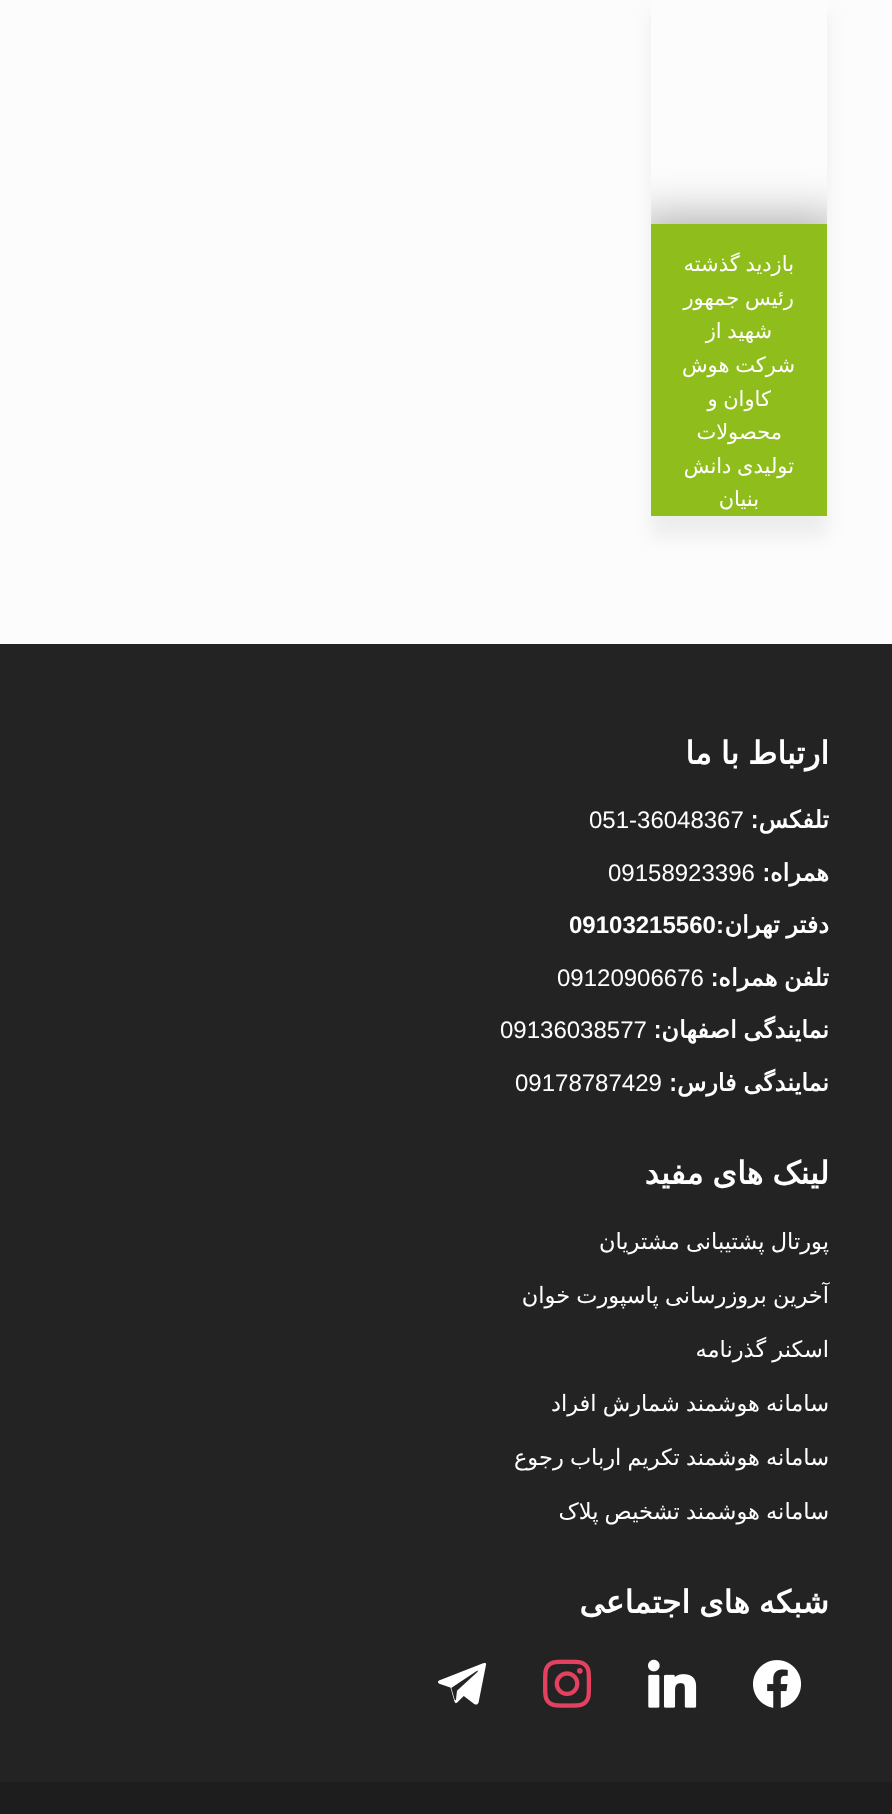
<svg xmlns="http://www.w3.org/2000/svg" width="892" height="1814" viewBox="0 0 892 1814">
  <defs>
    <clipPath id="clip1"><path d="M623 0H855V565H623ZM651-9H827V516H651Z" clip-rule="evenodd"/></clipPath>
    <clipPath id="clip2"><rect x="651" y="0" width="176" height="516"/></clipPath>
  </defs>
  <rect width="100%" height="100%" fill="rgb(252,252,252)"/>
  <g clip-path="url(#clip1)">
    <rect x="651" y="12" width="176" height="525" fill="rgba(0,0,0,0.06)" filter="blur(9px)"/>
  </g>
  <rect x="0" y="644" width="892" height="1138" fill="rgb(35,35,35)"/>
  <g clip-path="url(#clip2)">
    <rect x="636" y="216" width="206" height="512" fill="rgba(0,0,0,0.3)" filter="blur(22.5px)"/>
  </g>
  <rect x="651" y="224" width="176" height="292" fill="rgb(143,189,28)"/>
  <g font-family="DejaVu Sans" font-size="21" direction="rtl" fill="rgb(255,255,255)">
    <text>
      <tspan x="794" y="271" word-spacing="-1">بازدید گذشته</tspan>
      <tspan x="794" y="305" word-spacing="-1">رئیس جمهور</tspan>
    </text>
    <text x="772" y="338" word-spacing="-1">شهید از</text>
    <text x="795" y="372" word-spacing="-1">شرکت هوش</text>
    <text x="771" y="406" word-spacing="-1">کاوان و</text>
    <text x="782" y="439">محصولات</text>
    <text x="794" y="473" word-spacing="-1">تولیدی دانش</text>
    <text x="759" y="506">بنیان</text>
  </g>
  <text x="829" y="764" word-spacing="-1" font-family="DejaVu Sans" font-size="31.5" font-weight="bold" direction="rtl" fill="rgb(255,255,255)">ارتباط با ما</text>
  <text x="829" y="828" font-family="DejaVu Sans" font-size="24" font-weight="bold" direction="rtl" fill="rgb(255,255,255)">تلفکس:</text>
  <text x="589" y="828" font-family="Liberation Sans" font-size="24" fill="rgb(255,255,255)">051-36048367</text>
  <text x="829" y="881" font-family="DejaVu Sans" font-size="24" font-weight="bold" direction="rtl" fill="rgb(255,255,255)">همراه:</text>
  <text x="608" y="881" font-family="Liberation Sans" font-size="24" fill="rgb(255,255,255)">09158923396</text>
  <text x="829" y="933" word-spacing="-1" font-family="DejaVu Sans" font-size="24" font-weight="bold" direction="rtl" fill="rgb(255,255,255)">دفتر تهران</text>
  <text x="724" y="933" font-family="Liberation Sans" font-size="24" font-weight="bold" direction="rtl" fill="rgb(255,255,255)">:</text>
  <text x="569" y="933" font-family="Liberation Sans" font-size="24" font-weight="bold" fill="rgb(255,255,255)">09103215560</text>
  <text x="829" y="986" word-spacing="-1" font-family="DejaVu Sans" font-size="24" font-weight="bold" direction="rtl" fill="rgb(255,255,255)">تلفن همراه:</text>
  <text x="557" y="986" font-family="Liberation Sans" font-size="24" fill="rgb(255,255,255)">09120906676</text>
  <text x="829" y="1038" word-spacing="-1" font-family="DejaVu Sans" font-size="24" font-weight="bold" direction="rtl" fill="rgb(255,255,255)">نمایندگی اصفهان:</text>
  <text x="500" y="1038" font-family="Liberation Sans" font-size="24" fill="rgb(255,255,255)">09136038577</text>
  <text x="829" y="1091" word-spacing="-1" font-family="DejaVu Sans" font-size="24" font-weight="bold" direction="rtl" fill="rgb(255,255,255)">نمایندگی فارس:</text>
  <text x="515" y="1091" font-family="Liberation Sans" font-size="24" fill="rgb(255,255,255)">09178787429</text>
  <text x="829" y="1184" word-spacing="-1" font-family="DejaVu Sans" font-size="31.5" font-weight="bold" direction="rtl" fill="rgb(255,255,255)">لینک های مفید</text>
  <g font-family="DejaVu Sans" font-size="22.5" direction="rtl" fill="rgb(255,255,255)">
    <text x="829" y="1249" word-spacing="-1">پورتال پشتیبانی مشتریان</text>
    <text x="829" y="1303" word-spacing="-1">آخرین بروزرسانی پاسپورت خوان</text>
    <text x="829" y="1357" word-spacing="-1">اسکنر گذرنامه</text>
    <text x="829" y="1411" word-spacing="-1">سامانه هوشمند شمارش افراد</text>
    <text x="829" y="1465" word-spacing="-1">سامانه هوشمند تکریم ارباب رجوع</text>
    <text x="829" y="1519" word-spacing="-1">سامانه هوشمند تشخیص پلاک</text>
  </g>
  <text x="829" y="1613" word-spacing="-1" font-family="DejaVu Sans" font-size="31.5" font-weight="bold" direction="rtl" fill="rgb(255,255,255)">شبکه های اجتماعی</text>
  <image x="753" y="1660" width="49" height="48" href="pic1.png"/>
  <image x="648" y="1659" width="49" height="49" href="pic2.png"/>
  <image x="543" y="1659" width="49" height="49" href="pic3.png"/>
  <image x="438" y="1662" width="49" height="43" href="pic4.png"/>
  <rect x="0" y="1782" width="892" height="32" fill="rgb(29,29,29)"/>
</svg>
